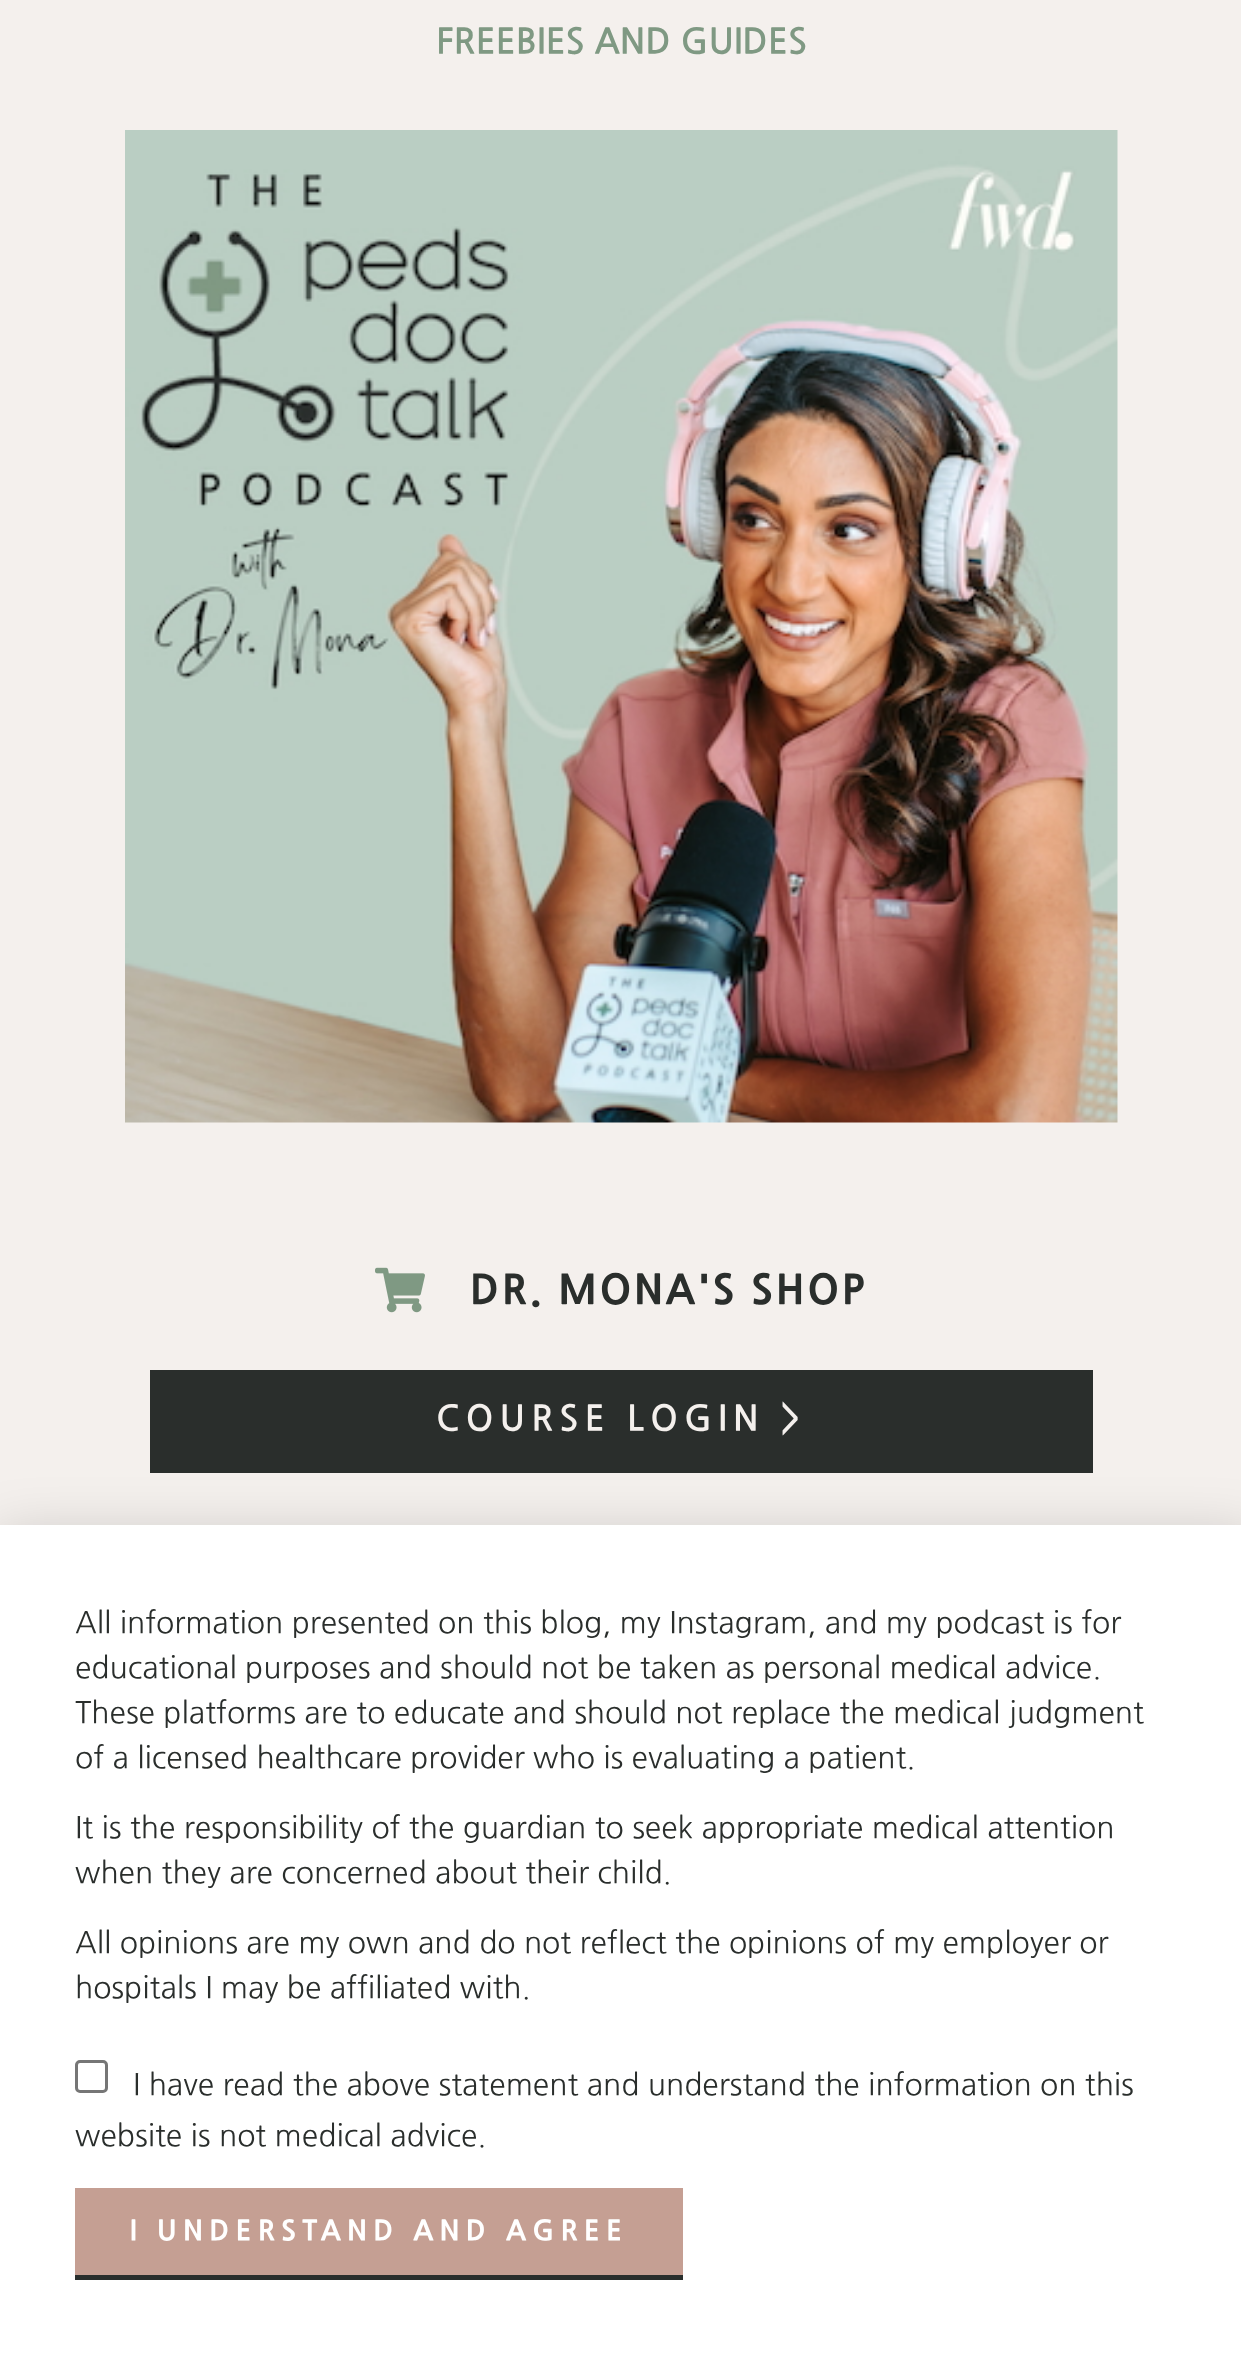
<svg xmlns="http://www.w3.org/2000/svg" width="1241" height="2355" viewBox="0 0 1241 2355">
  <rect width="100%" height="100%" fill="rgb(244,240,237)"/>
  <text x="436" y="52" font-family="NanumGothic" font-size="35" font-weight="bold" fill="rgb(127,153,131)">FREEBIES AND GUIDES</text>
  <image x="125" y="130" width="993" height="993" href="pic1.png"/>
  <image x="375" y="1267" width="50" height="46" href="pic2.png"/>
  <text x="470" y="1302" font-family="NanumGothic" font-size="40" font-weight="800" letter-spacing="2.75" fill="rgb(42,46,44)">DR. MONA'S SHOP</text>
  <rect x="150" y="1370" width="943" height="103" fill="rgb(42,46,44)"/>
  <text x="436" y="1429" font-family="NanumGothic" font-size="35" font-weight="bold" letter-spacing="6.25" fill="rgb(244,240,237)">COURSE LOGIN &gt;</text>
  <rect x="-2" y="1538" width="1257" height="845" fill="rgba(0,0,0,0.2)" filter="blur(29px)"/>
  <rect x="0" y="1525" width="1241" height="830" fill="rgb(255,255,255)"/>
  <g font-family="NanumGothic" font-size="30" fill="rgb(42,46,44)">
    <text>
      <tspan x="75" y="1632">All information presented on this blog, my Instagram, and my podcast is for</tspan>
      <tspan x="75" y="1677">educational purposes and should not be taken as personal medical advice.</tspan>
      <tspan x="75" y="1722">These platforms are to educate and should not replace the medical judgment</tspan>
      <tspan x="75" y="1767">of a licensed healthcare provider who is evaluating a patient.</tspan>
    </text>
    <text>
      <tspan x="75" y="1837">It is the responsibility of the guardian to seek appropriate medical attention</tspan>
      <tspan x="75" y="1882">when they are concerned about their child.</tspan>
    </text>
    <text>
      <tspan x="75" y="1952">All opinions are my own and do not reflect the opinions of my employer or</tspan>
      <tspan x="75" y="1997">hospitals I may be affiliated with.</tspan>
    </text>
  </g>
  <rect x="76.5" y="2061.5" width="30" height="30" rx="3.5" fill="none" stroke="rgb(118,118,118)" stroke-width="3"/>
  <g font-family="NanumGothic" font-size="30" fill="rgb(42,46,44)">
    <text x="133" y="2094">I have read the above statement and understand the information on this</text>
    <text x="75" y="2145">website is not medical advice.</text>
  </g>
  <rect x="75" y="2188" width="608" height="87" fill="rgb(197,159,147)"/>
  <rect x="75" y="2275" width="608" height="5" fill="rgb(42,46,44)"/>
  <text x="130" y="2239" font-family="NanumGothic" font-size="27.5" font-weight="800" letter-spacing="6.25" fill="rgb(255,255,255)">I UNDERSTAND AND AGREE</text>
</svg>
